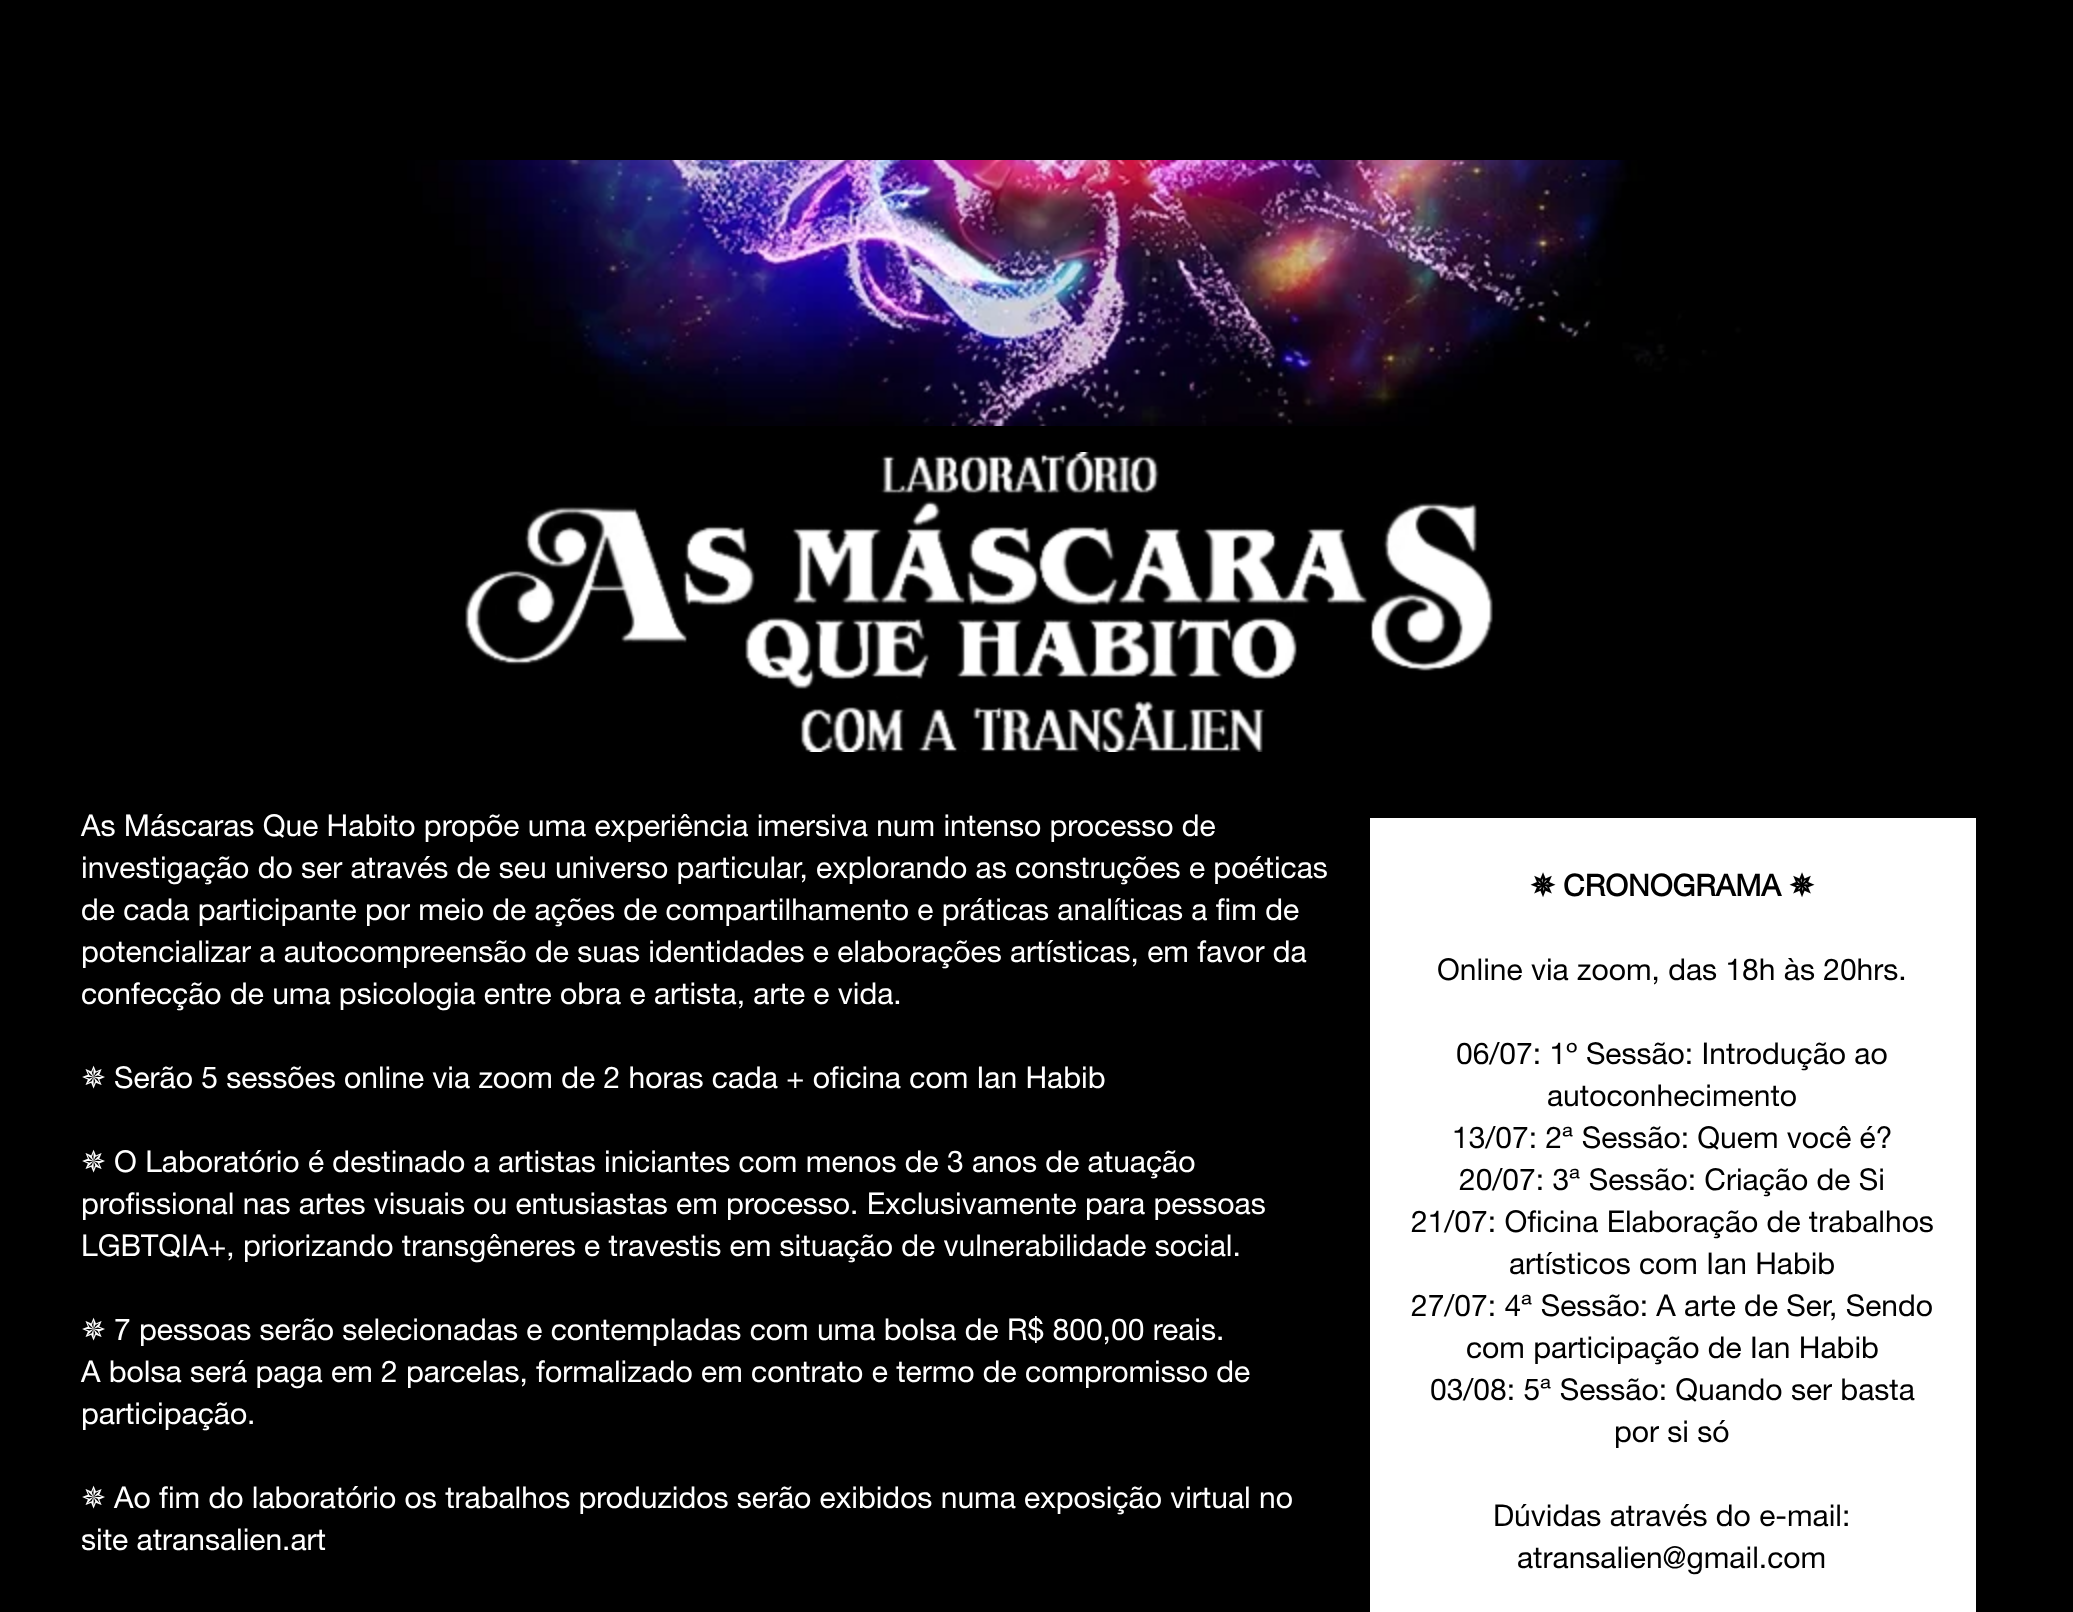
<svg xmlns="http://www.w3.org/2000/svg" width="2073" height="1612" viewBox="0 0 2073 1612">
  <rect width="100%" height="100%" fill="rgb(0,0,0)"/>
  <image x="407" y="160" width="1357" height="266" href="pic1.png"/>
  <image x="465" y="452" width="1028" height="300" href="pic2.png"/>
  <g font-family="helvetica neue" font-size="30" fill="rgb(255,255,255)">
    <text>
      <tspan x="81" y="836">As Máscaras Que Habito propõe uma experiência imersiva num intenso processo de</tspan>
      <tspan x="81" y="878">investigação do ser através de seu universo particular, explorando as construções e poéticas</tspan>
      <tspan x="81" y="920">de cada participante por meio de ações de compartilhamento e práticas analíticas a fim de</tspan>
      <tspan x="81" y="962">potencializar a autocompreensão de suas identidades e elaborações artísticas, em favor da</tspan>
      <tspan x="81" y="1004">confecção de uma psicologia entre obra e artista, arte e vida.</tspan>
    </text>
  </g>
  <text x="81" y="1088" font-family="DejaVu Sans" font-size="30" fill="rgb(255,255,255)">✵</text>
  <text x="114" y="1088" font-family="helvetica neue" font-size="30" fill="rgb(255,255,255)">Serão 5 sessões online via zoom de 2 horas cada + oficina com Ian Habib</text>
  <text x="81" y="1172" font-family="DejaVu Sans" font-size="30" fill="rgb(255,255,255)">✵</text>
  <g font-family="helvetica neue" font-size="30" fill="rgb(255,255,255)">
    <text x="114" y="1172">O Laboratório é destinado a artistas iniciantes com menos de 3 anos de atuação</text>
    <text>
      <tspan x="81" y="1214">profissional nas artes visuais ou entusiastas em processo. Exclusivamente para pessoas</tspan>
      <tspan x="81" y="1256">LGBTQIA+, priorizando transgêneres e travestis em situação de vulnerabilidade social.</tspan>
    </text>
  </g>
  <text x="81" y="1340" font-family="DejaVu Sans" font-size="30" fill="rgb(255,255,255)">✵</text>
  <g font-family="helvetica neue" font-size="30" fill="rgb(255,255,255)">
    <text x="114" y="1340">7 pessoas serão selecionadas e contempladas com uma bolsa de R$ 800,00 reais.</text>
    <text>
      <tspan x="81" y="1382">A bolsa será paga em 2 parcelas, formalizado em contrato e termo de compromisso de</tspan>
      <tspan x="81" y="1424">participação.</tspan>
    </text>
  </g>
  <text x="81" y="1508" font-family="DejaVu Sans" font-size="30" fill="rgb(255,255,255)">✵</text>
  <g font-family="helvetica neue" font-size="30" fill="rgb(255,255,255)">
    <text x="114" y="1508">Ao fim do laboratório os trabalhos produzidos serão exibidos numa exposição virtual no</text>
    <text x="81" y="1550">site atransalien.art</text>
  </g>
  <rect x="1370" y="818" width="606" height="794" fill="rgb(255,255,255)"/>
  <text x="1530" y="896" font-family="DejaVu Sans" font-size="30" font-weight="bold" fill="rgb(0,0,0)">✵</text>
  <text x="1563" y="896" font-family="helvetica neue" font-size="30" font-weight="bold" fill="rgb(0,0,0)">CRONOGRAMA</text>
  <text x="1789" y="896" font-family="DejaVu Sans" font-size="30" font-weight="bold" fill="rgb(0,0,0)">✵</text>
  <g font-family="helvetica neue" font-size="30" fill="rgb(0,0,0)">
    <text x="1437" y="980">Online via zoom, das 18h às 20hrs.</text>
    <text x="1456" y="1064">06/07: 1º Sessão: Introdução ao</text>
    <text x="1547" y="1106">autoconhecimento</text>
    <text x="1452" y="1148">13/07: 2ª Sessão: Quem você é?</text>
    <text x="1459" y="1190">20/07: 3ª Sessão: Criação de Si</text>
    <text x="1411" y="1232">21/07: Oficina Elaboração de trabalhos</text>
    <text x="1509" y="1274">artísticos com Ian Habib</text>
    <text x="1411" y="1316">27/07: 4ª Sessão: A arte de Ser, Sendo</text>
    <text x="1466" y="1358">com participação de Ian Habib</text>
    <text x="1430" y="1400">03/08: 5ª Sessão: Quando ser basta</text>
    <text x="1614" y="1442">por si só</text>
    <text x="1493" y="1526">Dúvidas através do e-mail:</text>
    <text x="1517" y="1568">atransalien@gmail.com</text>
  </g>
</svg>
